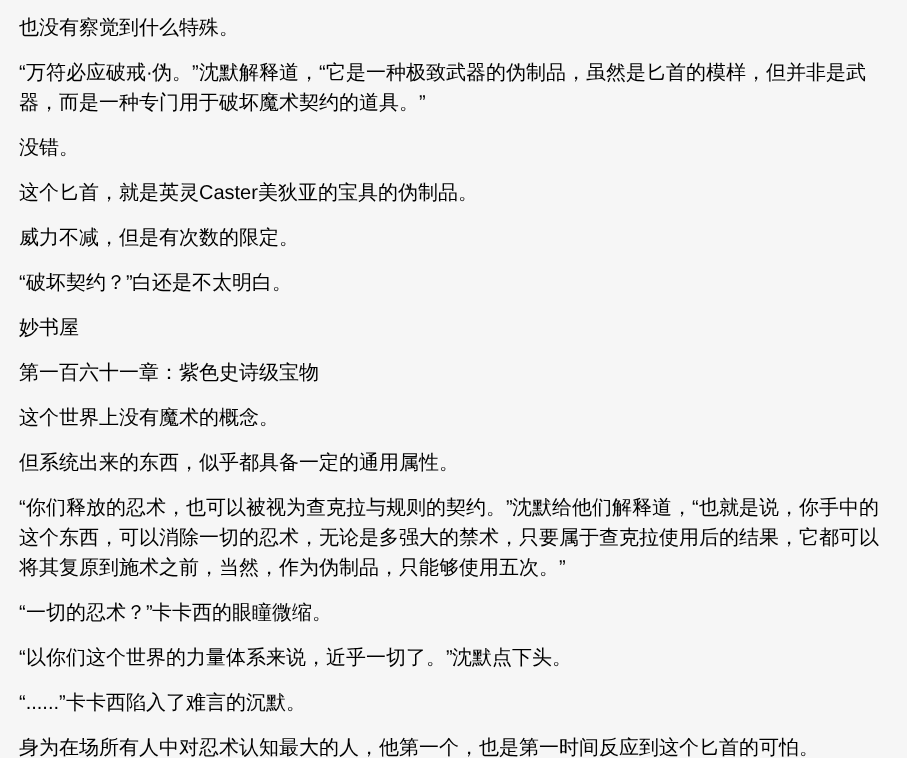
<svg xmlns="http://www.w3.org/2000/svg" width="907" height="758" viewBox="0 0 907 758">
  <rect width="100%" height="100%" fill="rgb(246,246,246)"/>
  <text x="19" y="34" font-family="WenQuanYi Zen Hei" font-size="20" font-weight="500" fill="rgb(0,0,0)">也没有察觉到什么特殊。</text>
  <text x="19" y="79" font-family="Liberation Sans" font-size="20" fill="rgb(0,0,0)">“</text>
  <g font-family="WenQuanYi Zen Hei" font-size="20" font-weight="500" fill="rgb(0,0,0)">
    <text x="26" y="79">万符必应破戒</text>
    <text x="152" y="79">伪。</text>
  </g>
  <text x="192" y="79" font-family="Liberation Sans" font-size="20" fill="rgb(0,0,0)">”</text>
  <text x="199" y="79" font-family="WenQuanYi Zen Hei" font-size="20" font-weight="500" fill="rgb(0,0,0)">沈默解释道，</text>
  <text x="319" y="79" font-family="Liberation Sans" font-size="20" fill="rgb(0,0,0)">“</text>
  <text x="326" y="79" font-family="WenQuanYi Zen Hei" font-size="20" font-weight="500" fill="rgb(0,0,0)">它是一种极致武器的伪制品，虽然是匕首的模样，但并非是武</text>
  <text x="146" y="79" font-family="Liberation Sans" font-size="20" fill="rgb(0,0,0)">·</text>
  <text x="19" y="109" font-family="WenQuanYi Zen Hei" font-size="20" font-weight="500" fill="rgb(0,0,0)">器，而是一种专门用于破坏魔术契约的道具。</text>
  <text x="419" y="109" font-family="Liberation Sans" font-size="20" fill="rgb(0,0,0)">”</text>
  <g font-family="WenQuanYi Zen Hei" font-size="20" font-weight="500" fill="rgb(0,0,0)">
    <text x="19" y="154">没错。</text>
    <text x="19" y="199">这个匕首，就是英灵</text>
  </g>
  <text x="199" y="199" font-family="Liberation Sans" font-size="20" fill="rgb(0,0,0)">Caster</text>
  <g font-family="WenQuanYi Zen Hei" font-size="20" font-weight="500" fill="rgb(0,0,0)">
    <text x="258" y="199">美狄亚的宝具的伪制品。</text>
    <text x="19" y="244">威力不减，但是有次数的限定。</text>
  </g>
  <text x="19" y="289" font-family="Liberation Sans" font-size="20" fill="rgb(0,0,0)">“</text>
  <text x="26" y="289" font-family="WenQuanYi Zen Hei" font-size="20" font-weight="500" fill="rgb(0,0,0)">破坏契约？</text>
  <text x="126" y="289" font-family="Liberation Sans" font-size="20" fill="rgb(0,0,0)">”</text>
  <g font-family="WenQuanYi Zen Hei" font-size="20" font-weight="500" fill="rgb(0,0,0)">
    <text x="132" y="289">白还是不太明白。</text>
    <text x="19" y="334">妙书屋</text>
    <text x="19" y="379">第一百六十一章：紫色史诗级宝物</text>
    <text x="19" y="424">这个世界上没有魔术的概念。</text>
    <text x="19" y="469">但系统出来的东西，似乎都具备一定的通用属性。</text>
  </g>
  <text x="19" y="514" font-family="Liberation Sans" font-size="20" fill="rgb(0,0,0)">“</text>
  <text x="26" y="514" font-family="WenQuanYi Zen Hei" font-size="20" font-weight="500" fill="rgb(0,0,0)">你们释放的忍术，也可以被视为查克拉与规则的契约。</text>
  <text x="506" y="514" font-family="Liberation Sans" font-size="20" fill="rgb(0,0,0)">”</text>
  <text x="512" y="514" font-family="WenQuanYi Zen Hei" font-size="20" font-weight="500" fill="rgb(0,0,0)">沈默给他们解释道，</text>
  <text x="692" y="514" font-family="Liberation Sans" font-size="20" fill="rgb(0,0,0)">“</text>
  <g font-family="WenQuanYi Zen Hei" font-size="20" font-weight="500" fill="rgb(0,0,0)">
    <text x="699" y="514">也就是说，你手中的</text>
    <text>
      <tspan x="19" y="544">这个东西，可以消除一切的忍术，无论是多强大的禁术，只要属于查克拉使用后的结果，它都可以</tspan>
      <tspan x="19" y="574">将其复原到施术之前，当然，作为伪制品，只能够使用五次。</tspan>
    </text>
  </g>
  <g font-family="Liberation Sans" font-size="20" fill="rgb(0,0,0)">
    <text x="559" y="574">”</text>
    <text x="19" y="619">“</text>
  </g>
  <text x="26" y="619" font-family="WenQuanYi Zen Hei" font-size="20" font-weight="500" fill="rgb(0,0,0)">一切的忍术？</text>
  <text x="146" y="619" font-family="Liberation Sans" font-size="20" fill="rgb(0,0,0)">”</text>
  <text x="152" y="619" font-family="WenQuanYi Zen Hei" font-size="20" font-weight="500" fill="rgb(0,0,0)">卡卡西的眼瞳微缩。</text>
  <text x="19" y="664" font-family="Liberation Sans" font-size="20" fill="rgb(0,0,0)">“</text>
  <text x="26" y="664" font-family="WenQuanYi Zen Hei" font-size="20" font-weight="500" fill="rgb(0,0,0)">以你们这个世界的力量体系来说，近乎一切了。</text>
  <text x="446" y="664" font-family="Liberation Sans" font-size="20" fill="rgb(0,0,0)">”</text>
  <text x="452" y="664" font-family="WenQuanYi Zen Hei" font-size="20" font-weight="500" fill="rgb(0,0,0)">沈默点下头。</text>
  <text x="19" y="709" font-family="Liberation Sans" font-size="20" fill="rgb(0,0,0)">“......”</text>
  <g font-family="WenQuanYi Zen Hei" font-size="20" font-weight="500" fill="rgb(0,0,0)">
    <text x="66" y="709">卡卡西陷入了难言的沉默。</text>
    <text x="19" y="754">身为在场所有人中对忍术认知最大的人，他第一个，也是第一时间反应到这个匕首的可怕。</text>
  </g>
</svg>
